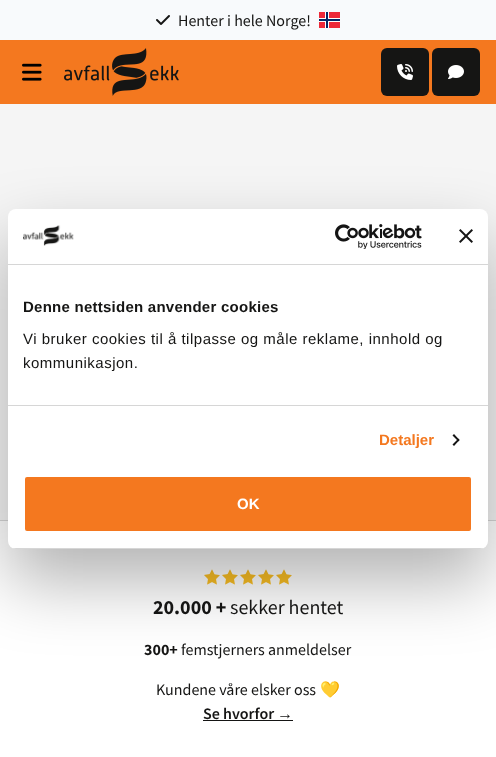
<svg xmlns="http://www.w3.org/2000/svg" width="496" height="757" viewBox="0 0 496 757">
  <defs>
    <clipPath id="clip1"><rect x="8" y="209" width="480" height="340" rx="8"/></clipPath>
  </defs>
  <rect width="100%" height="100%" fill="rgb(245,245,245)"/>
  <rect x="0" y="0" width="496" height="40" fill="rgb(248,250,252)"/>
  <image x="156" y="15" width="14" height="10" href="pic1.png"/>
  <text x="178" y="26" font-family="Source Sans Pro" font-size="16" fill="rgb(21,21,20)">Henter i hele Norge!</text>
  <image x="319" y="12" width="21" height="16" href="pic2.png"/>
  <rect x="0" y="40" width="496" height="64" fill="rgb(244,120,31)"/>
  <image x="22" y="63" width="20" height="18" href="pic3.png"/>
  <image x="64" y="48" width="115" height="48" href="pic4.png"/>
  <rect x="381" y="48" width="48" height="48" rx="6" fill="rgb(21,21,20)"/>
  <image x="397" y="64" width="16" height="16" href="pic5.png"/>
  <rect x="432" y="48" width="48" height="48" rx="6" fill="rgb(21,21,20)"/>
  <image x="448" y="65" width="16" height="14" href="pic6.png"/>
  <rect x="0" y="521" width="496" height="236" fill="rgb(255,255,255)"/>
  <rect x="0" y="520" width="496" height="1" fill="rgb(214,214,214)"/>
  <image x="204" y="569" width="16" height="16" href="pic10.png"/>
  <image x="222" y="569" width="16" height="16" href="pic10.png"/>
  <image x="240" y="569" width="16" height="16" href="pic10.png"/>
  <image x="258" y="569" width="16" height="16" href="pic10.png"/>
  <image x="276" y="569" width="16" height="16" href="pic10.png"/>
  <rect x="8" y="241" width="480" height="340" rx="8" fill="rgba(0,0,0,0.3)" filter="blur(34px)"/>
  <rect x="8" y="209" width="480" height="340" rx="8" fill="rgb(255,255,255)"/>
  <rect x="8" y="264" width="480" height="1" fill="rgb(214,214,214)"/>
  <image x="23" y="225" width="51" height="21" href="pic7.png"/>
  <image x="335" y="224" width="87" height="25" href="pic8.png"/>
  <image x="459" y="229" width="14" height="14" href="pic9.png"/>
  <rect x="8" y="405" width="480" height="1" fill="rgb(214,214,214)"/>
  <text x="23" y="312" font-family="Liberation Sans" font-size="15" font-weight="bold" letter-spacing="0.25" fill="rgb(21,21,20)">Denne nettsiden anvender cookies</text>
  <g font-family="Liberation Sans" font-size="15" letter-spacing="0.5" fill="rgb(21,21,20)">
    <text>
      <tspan x="23" y="344">Vi bruker cookies til å tilpasse og måle reklame, innhold og</tspan>
      <tspan x="23" y="368">kommunikasjon.</tspan>
    </text>
  </g>
  <text x="379" y="445" font-family="Liberation Sans" font-size="15" font-weight="bold" fill="rgb(244,120,31)">Detaljer</text>
  <path d="M454 434L459.5 440L458.5 441.5L452.5 435.5Z" fill="rgb(20,20,20)"/>
  <path d="M458.5 438.5L459.5 440L454 446L452.5 444.5Z" fill="rgb(20,20,20)"/>
  <g clip-path="url(#clip1)">
    <rect x="8" y="548" width="480" height="1" fill="rgb(214,214,214)"/>
  </g>
  <rect x="24" y="476" width="448" height="56" rx="3" fill="rgb(244,120,31)" stroke="rgb(255,255,255)" stroke-width="2"/>
  <text x="237" y="509" font-family="Liberation Sans" font-size="15" font-weight="bold" fill="rgb(255,255,255)">OK</text>
  <text x="153" y="614" font-family="Source Sans Pro" font-size="20" font-weight="bold" fill="rgb(21,21,20)">20.000 +</text>
  <text x="230" y="614" font-family="Source Sans Pro" font-size="20" fill="rgb(21,21,20)">sekker hentet</text>
  <text x="144" y="655" font-family="Source Sans Pro" font-size="16" font-weight="bold" fill="rgb(21,21,20)">300+</text>
  <g font-family="Source Sans Pro" font-size="16" fill="rgb(21,21,20)">
    <text x="181" y="655">femstjerners anmeldelser</text>
    <text x="156" y="695">Kundene våre elsker oss</text>
  </g>
  <text x="320" y="695" font-family="Noto Color Emoji" font-size="16" fill="rgb(21,21,20)">💛</text>
  <text x="203" y="719" font-family="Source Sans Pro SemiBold" font-size="16" font-weight="600" fill="rgb(21,21,20)">Se hvorfor</text>
  <text x="277" y="719" font-family="Liberation Sans" font-size="16" font-weight="bold" fill="rgb(21,21,20)">→</text>
  <rect x="203" y="720" width="90" height="1" fill="rgb(21,21,20)"/>
</svg>
